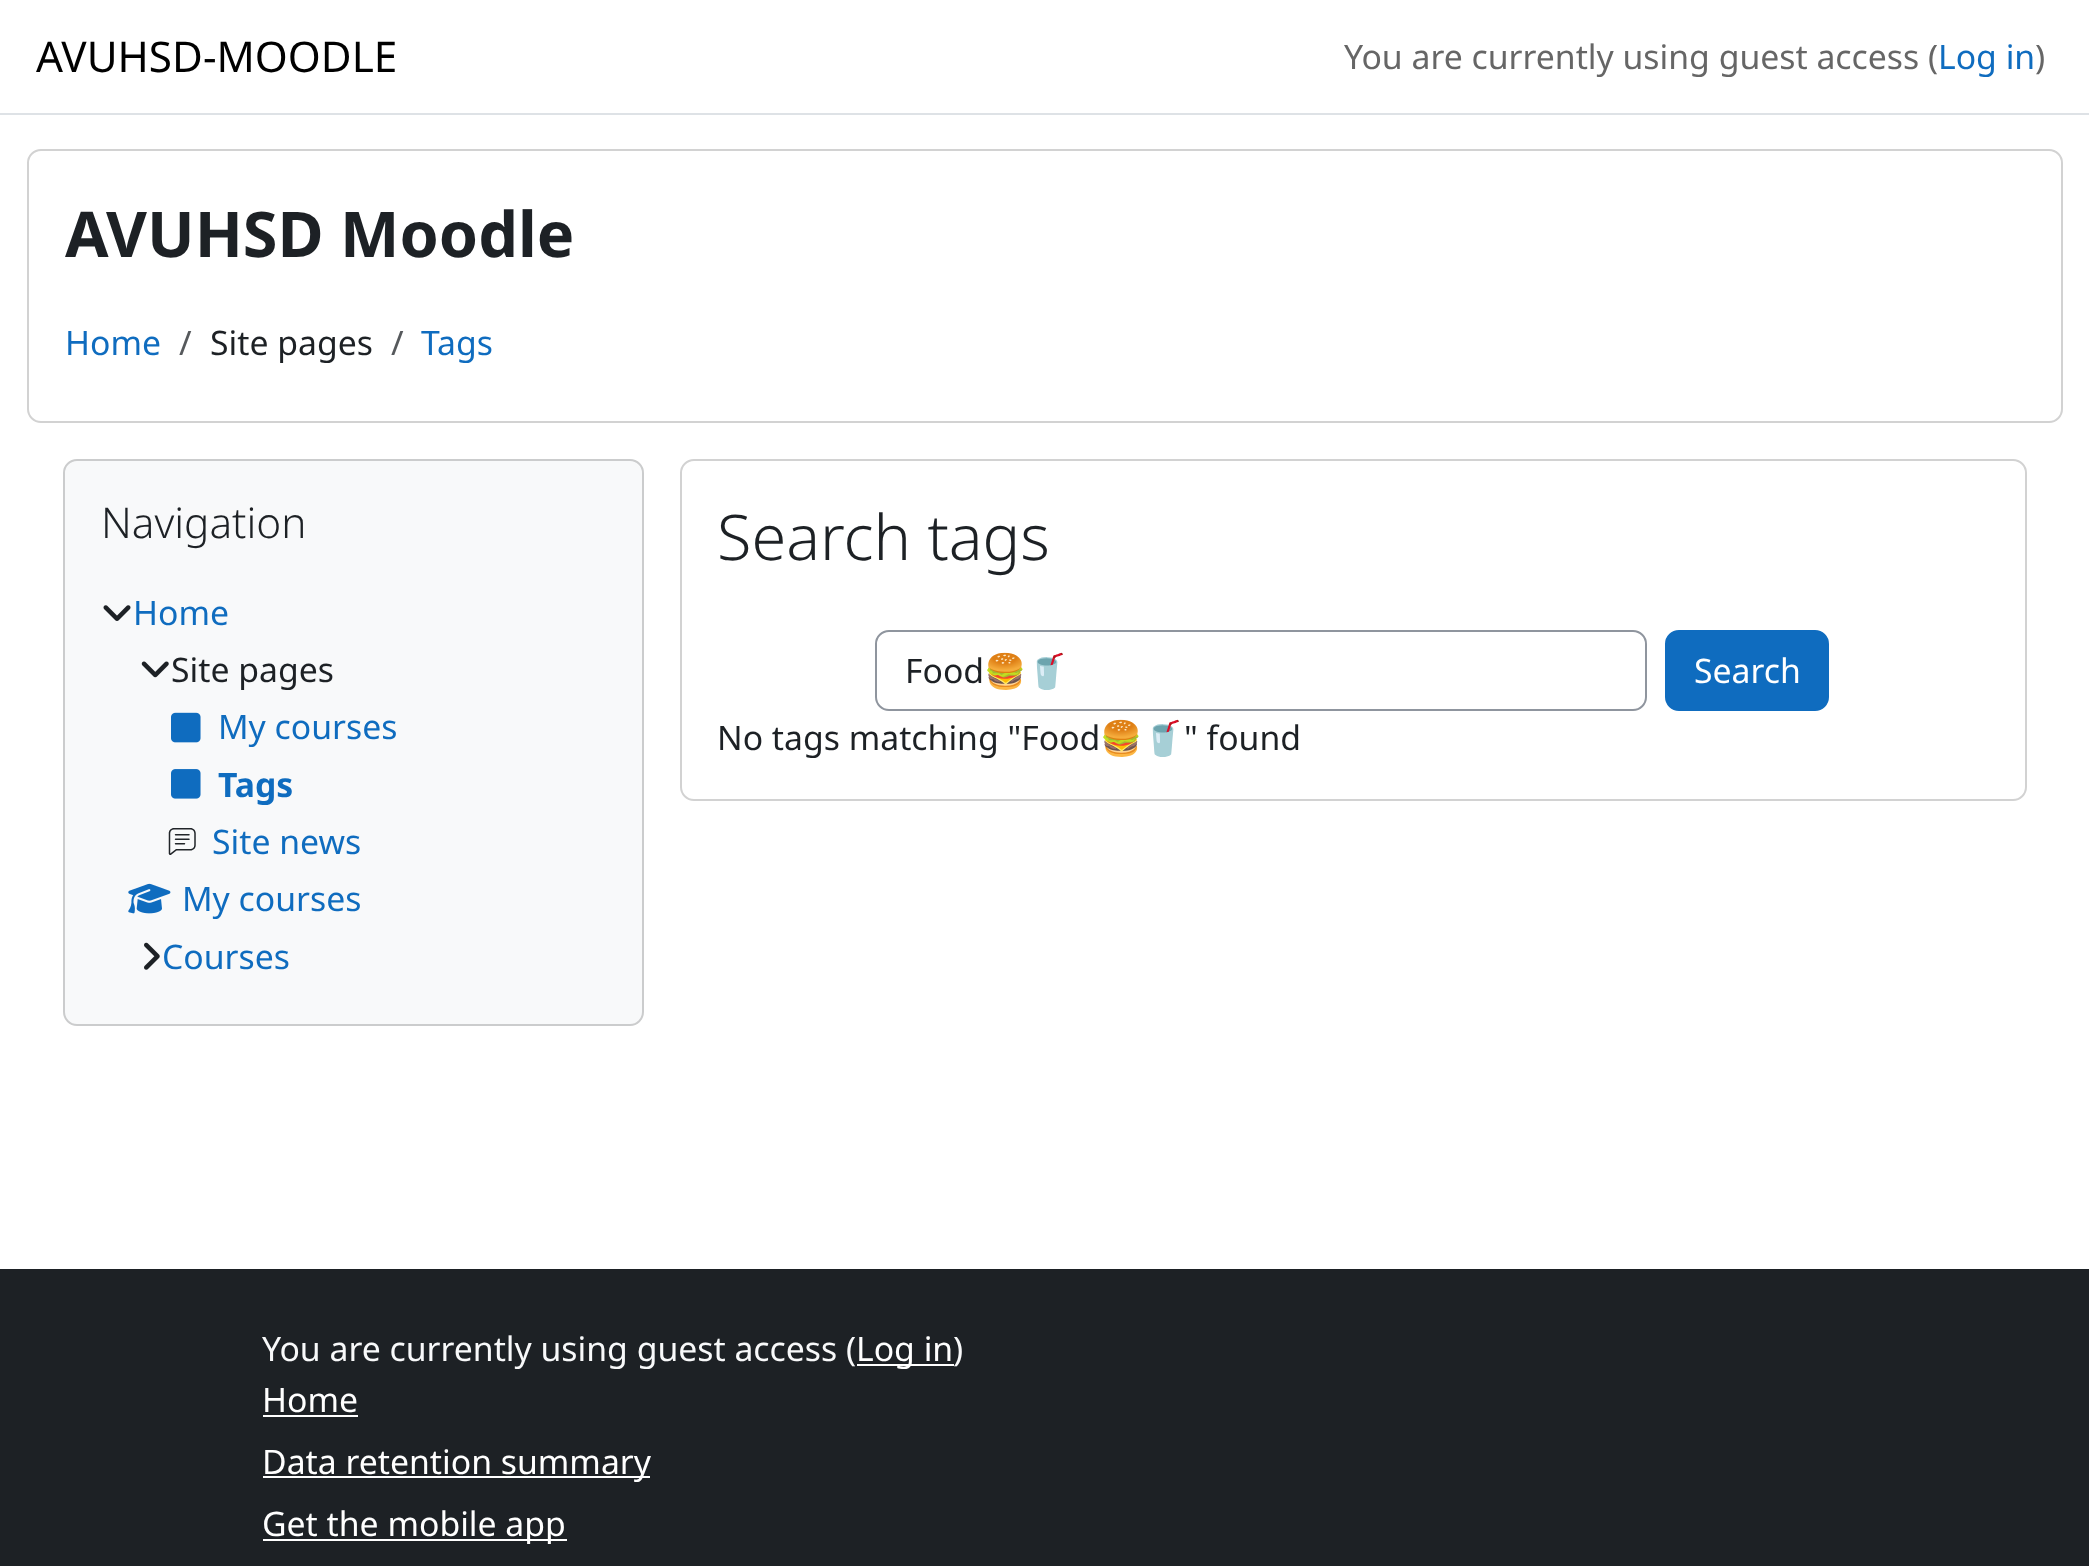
<svg xmlns="http://www.w3.org/2000/svg" width="2089" height="1566" viewBox="0 0 2089 1566">
  <rect width="100%" height="100%" fill="rgb(255,255,255)"/>
  <rect x="0" y="113" width="2089" height="2" fill="rgb(222,226,230)"/>
  <text x="36" y="72" font-family="Noto Sans" font-size="42.25" fill="rgb(0,0,0)">AVUHSD-MOODLE</text>
  <text x="1344" y="69" font-family="Noto Sans" font-size="33.75" fill="rgb(102,102,102)">You are currently using guest access (</text>
  <text x="1938" y="69" font-family="Noto Sans" font-size="33.75" fill="rgb(15,108,191)">Log in</text>
  <text x="2035" y="69" font-family="Noto Sans" font-size="33.75" fill="rgb(102,102,102)">)</text>
  <rect x="28" y="150" width="2034" height="272" rx="13" fill="none" stroke="rgb(210,210,210)" stroke-width="2"/>
  <text x="65" y="257" font-family="Noto Sans" font-size="63" font-weight="bold" fill="rgb(29,33,37)">AVUHSD Moodle</text>
  <text x="65" y="355" font-family="Noto Sans" font-size="33.75" fill="rgb(15,108,191)">Home</text>
  <text x="179" y="355" font-family="Noto Sans" font-size="33.75" fill="rgb(86,89,92)">/</text>
  <text x="210" y="355" font-family="Noto Sans" font-size="33.75" fill="rgb(29,33,37)">Site pages</text>
  <text x="391" y="355" font-family="Noto Sans" font-size="33.75" fill="rgb(86,89,92)">/</text>
  <text x="421" y="355" font-family="Noto Sans" font-size="33.75" fill="rgb(15,108,191)">Tags</text>
  <rect x="63" y="459" width="581" height="567" rx="14" fill="rgb(248,249,250)"/>
  <rect x="64" y="460" width="579" height="565" rx="13" fill="none" stroke="rgba(0,0,0,0.18)" stroke-width="2"/>
  <text x="101" y="538" font-family="Noto Sans" font-size="42.25" font-weight="300" fill="rgb(29,33,37)">Navigation</text>
  <image x="103" y="605" width="28" height="16" href="pic1.png"/>
  <text x="133" y="625" font-family="Noto Sans" font-size="33.75" fill="rgb(15,108,191)">Home</text>
  <image x="141" y="661" width="28" height="17" href="pic2.png"/>
  <text x="171" y="682" font-family="Noto Sans" font-size="33.75" fill="rgb(29,33,37)">Site pages</text>
  <image x="171" y="712" width="30" height="31" href="pic3.png"/>
  <text x="218" y="739" font-family="Noto Sans" font-size="33.75" fill="rgb(15,108,191)">My courses</text>
  <image x="171" y="769" width="30" height="30" href="pic4.png"/>
  <text x="218" y="797" font-family="Noto Sans" font-size="33.75" font-weight="bold" fill="rgb(15,108,191)">Tags</text>
  <image x="168" y="828" width="28" height="27" href="pic5.png"/>
  <text x="212" y="854" font-family="Noto Sans" font-size="33.75" fill="rgb(15,108,191)">Site news</text>
  <image x="128" y="883" width="43" height="31" href="pic6.png"/>
  <text x="182" y="911" font-family="Noto Sans" font-size="33.75" fill="rgb(15,108,191)">My courses</text>
  <image x="144" y="942" width="16" height="28" href="pic7.png"/>
  <text x="162" y="969" font-family="Noto Sans" font-size="33.75" fill="rgb(15,108,191)">Courses</text>
  <rect x="681" y="460" width="1345" height="340" rx="13" fill="none" stroke="rgb(210,210,210)" stroke-width="2"/>
  <text x="717" y="560" font-family="Noto Sans" font-size="63" font-weight="300" fill="rgb(29,33,37)">Search tags</text>
  <rect x="876" y="631" width="770" height="79" rx="13" fill="none" stroke="rgb(143,149,158)" stroke-width="2"/>
  <text x="905" y="683" font-family="Noto Sans" font-size="33.75" fill="rgb(29,33,37)">Food</text>
  <text x="984" y="683" font-family="Noto Color Emoji" font-size="33.75" fill="rgb(29,33,37)">🍔🥤</text>
  <rect x="1666" y="631" width="162" height="79" rx="13" fill="rgb(15,108,191)" stroke="rgb(15,108,191)" stroke-width="2"/>
  <text x="1694" y="683" font-family="Noto Sans" font-size="33.75" fill="rgb(255,255,255)">Search</text>
  <text x="717" y="750" font-family="Noto Sans" font-size="33.75" fill="rgb(29,33,37)">No tags matching "Food</text>
  <text x="1100" y="750" font-family="Noto Color Emoji" font-size="33.75" fill="rgb(29,33,37)">🍔🥤</text>
  <text x="1184" y="750" font-family="Noto Sans" font-size="33.75" fill="rgb(29,33,37)">" found</text>
  <rect x="0" y="1269" width="2089" height="297" fill="rgb(29,33,37)"/>
  <text x="262" y="1361" font-family="Noto Sans" font-size="33.75" fill="rgb(248,249,250)">You are currently using guest access (</text>
  <rect x="857" y="1364" width="97" height="2" fill="rgb(255,255,255)"/>
  <text x="856" y="1361" font-family="Noto Sans" font-size="33.75" fill="rgb(255,255,255)">Log in</text>
  <text x="953" y="1361" font-family="Noto Sans" font-size="33.75" fill="rgb(248,249,250)">)</text>
  <text x="262" y="1412" font-family="Noto Sans" font-size="33.75" fill="rgb(255,255,255)">Home</text>
  <rect x="263" y="1415" width="95" height="2" fill="rgb(255,255,255)"/>
  <rect x="263" y="1476" width="387" height="2" fill="rgb(255,255,255)"/>
  <text x="262" y="1474" font-family="Noto Sans" font-size="33.75" fill="rgb(255,255,255)">Data retention summary</text>
  <rect x="263" y="1539" width="304" height="2" fill="rgb(255,255,255)"/>
  <text x="262" y="1536" font-family="Noto Sans" font-size="33.75" fill="rgb(255,255,255)">Get the mobile app</text>
</svg>
